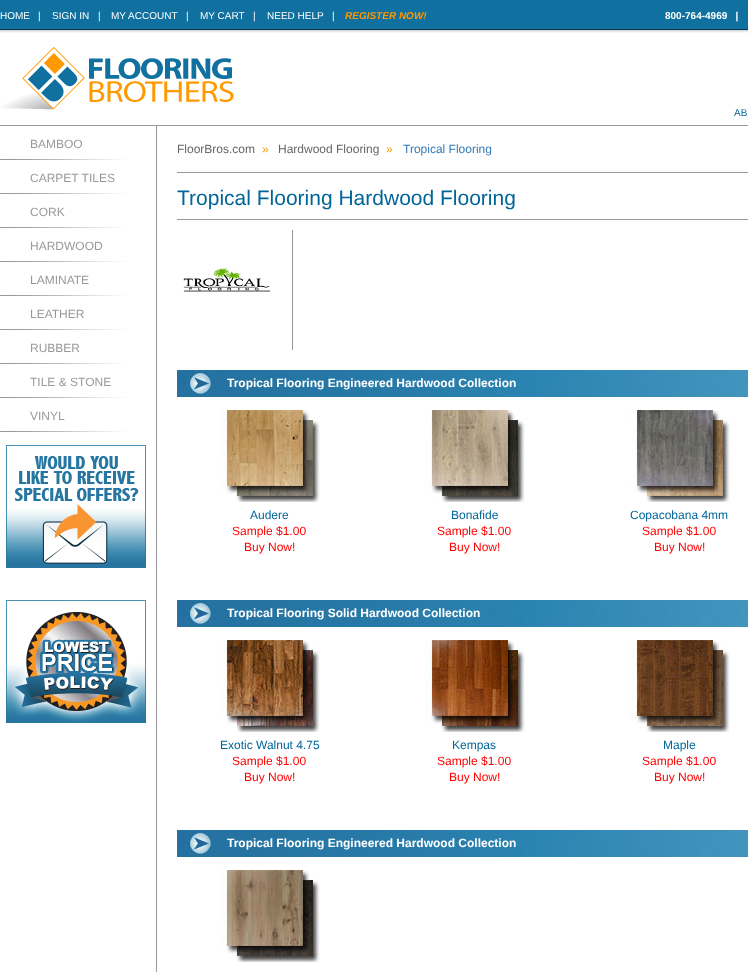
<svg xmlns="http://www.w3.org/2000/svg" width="748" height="972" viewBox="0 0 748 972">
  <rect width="100%" height="100%" fill="rgb(255,255,255)"/>
  <image x="0" y="0" width="748" height="33" href="pic1.png"/>
  <g font-family="Liberation Sans" font-size="10" fill="rgb(255,255,255)">
    <text x="0" y="19">HOME</text>
    <text x="38" y="19">|</text>
    <text x="52" y="19">SIGN IN</text>
    <text x="98" y="19">|</text>
    <text x="111" y="19">MY ACCOUNT</text>
    <text x="186" y="19">|</text>
    <text x="200" y="19">MY CART</text>
    <text x="253" y="19">|</text>
    <text x="267" y="19">NEED HELP</text>
    <text x="332" y="19">|</text>
  </g>
  <text x="345" y="19" font-family="Liberation Sans" font-size="10" font-weight="bold" font-style="italic" fill="rgb(255,153,0)">REGISTER NOW!</text>
  <text x="665" y="19" font-family="Liberation Sans" font-size="10" font-weight="bold" fill="rgb(255,255,255)" xml:space="preserve">800-764-4969   |</text>
  <rect x="0" y="125" width="748" height="1" fill="rgb(153,153,153)"/>
  <image x="1" y="47" width="233" height="63" href="pic2.png"/>
  <text x="734" y="116" font-family="Liberation Sans" font-size="10" fill="rgb(0,102,153)">AB</text>
  <image x="0" y="159" width="125" height="1" href="pic3.png"/>
  <text x="30" y="148" font-family="Liberation Sans" font-size="12" fill="rgb(153,153,153)">BAMBOO</text>
  <image x="0" y="193" width="125" height="1" href="pic3.png"/>
  <text x="30" y="182" font-family="Liberation Sans" font-size="12" fill="rgb(153,153,153)">CARPET TILES</text>
  <image x="0" y="227" width="125" height="1" href="pic3.png"/>
  <text x="30" y="216" font-family="Liberation Sans" font-size="12" fill="rgb(153,153,153)">CORK</text>
  <image x="0" y="261" width="125" height="1" href="pic3.png"/>
  <text x="30" y="250" font-family="Liberation Sans" font-size="12" fill="rgb(153,153,153)">HARDWOOD</text>
  <image x="0" y="295" width="125" height="1" href="pic3.png"/>
  <text x="30" y="284" font-family="Liberation Sans" font-size="12" fill="rgb(153,153,153)">LAMINATE</text>
  <image x="0" y="329" width="125" height="1" href="pic3.png"/>
  <text x="30" y="318" font-family="Liberation Sans" font-size="12" fill="rgb(153,153,153)">LEATHER</text>
  <image x="0" y="363" width="125" height="1" href="pic3.png"/>
  <text x="30" y="352" font-family="Liberation Sans" font-size="12" fill="rgb(153,153,153)">RUBBER</text>
  <image x="0" y="397" width="125" height="1" href="pic3.png"/>
  <text x="30" y="386" font-family="Liberation Sans" font-size="12" fill="rgb(153,153,153)">TILE &amp; STONE</text>
  <image x="0" y="431" width="125" height="1" href="pic3.png"/>
  <text x="30" y="420" font-family="Liberation Sans" font-size="12" fill="rgb(153,153,153)">VINYL</text>
  <image x="6" y="445" width="140" height="123" href="pic4.png"/>
  <image x="6" y="600" width="140" height="123" href="pic5.png"/>
  <rect x="156" y="126" width="1" height="846" fill="rgb(153,153,153)"/>
  <text x="177" y="153" font-family="Liberation Sans" font-size="12" fill="rgb(102,102,102)">FloorBros.com</text>
  <text x="262" y="153" font-family="Liberation Sans" font-size="12" fill="rgb(255,153,0)">»</text>
  <text x="278" y="153" font-family="Liberation Sans" font-size="12" fill="rgb(102,102,102)">Hardwood Flooring</text>
  <text x="386" y="153" font-family="Liberation Sans" font-size="12" fill="rgb(255,153,0)">»</text>
  <text x="403" y="153" font-family="Liberation Sans" font-size="12" fill="rgb(51,122,183)">Tropical Flooring</text>
  <rect x="177" y="172" width="571" height="1" fill="rgb(153,153,153)"/>
  <rect x="177" y="219" width="571" height="1" fill="rgb(153,153,153)"/>
  <text x="177" y="205" font-family="Liberation Sans" font-size="21" fill="rgb(0,102,153)">Tropical Flooring Hardwood Flooring</text>
  <image x="183" y="266" width="88" height="26" href="pic6.png"/>
  <rect x="292" y="230" width="1" height="120" fill="rgb(153,153,153)"/>
  <image x="177" y="370" width="571" height="27" href="pic7.png"/>
  <text x="227" y="387" font-family="Liberation Sans" font-size="12" font-weight="bold" fill="rgb(255,255,255)">Tropical Flooring Engineered Hardwood Collection</text>
  <image x="220" y="410" width="100" height="92" href="pic8.png"/>
  <text x="250" y="519" font-family="Liberation Sans" font-size="12" fill="rgb(0,102,153)">Audere</text>
  <g font-family="Liberation Sans" font-size="12" fill="rgb(255,0,0)">
    <text x="232" y="535">Sample $1.00</text>
    <text x="244" y="551">Buy Now!</text>
  </g>
  <image x="425" y="410" width="100" height="92" href="pic9.png"/>
  <text x="451" y="519" font-family="Liberation Sans" font-size="12" fill="rgb(0,102,153)">Bonafide</text>
  <g font-family="Liberation Sans" font-size="12" fill="rgb(255,0,0)">
    <text x="437" y="535">Sample $1.00</text>
    <text x="449" y="551">Buy Now!</text>
  </g>
  <image x="631" y="410" width="99" height="92" href="pic10.png"/>
  <text x="630" y="519" font-family="Liberation Sans" font-size="12" fill="rgb(0,102,153)">Copacobana 4mm</text>
  <g font-family="Liberation Sans" font-size="12" fill="rgb(255,0,0)">
    <text x="642" y="535">Sample $1.00</text>
    <text x="654" y="551">Buy Now!</text>
  </g>
  <image x="177" y="600" width="571" height="27" href="pic7.png"/>
  <text x="227" y="617" font-family="Liberation Sans" font-size="12" font-weight="bold" fill="rgb(255,255,255)">Tropical Flooring Solid Hardwood Collection</text>
  <image x="220" y="640" width="100" height="92" href="pic11.png"/>
  <text x="220" y="749" font-family="Liberation Sans" font-size="12" fill="rgb(0,102,153)">Exotic Walnut 4.75</text>
  <g font-family="Liberation Sans" font-size="12" fill="rgb(255,0,0)">
    <text x="232" y="765">Sample $1.00</text>
    <text x="244" y="781">Buy Now!</text>
  </g>
  <image x="425" y="640" width="100" height="92" href="pic12.png"/>
  <text x="452" y="749" font-family="Liberation Sans" font-size="12" fill="rgb(0,102,153)">Kempas</text>
  <g font-family="Liberation Sans" font-size="12" fill="rgb(255,0,0)">
    <text x="437" y="765">Sample $1.00</text>
    <text x="449" y="781">Buy Now!</text>
  </g>
  <image x="630" y="640" width="100" height="92" href="pic13.png"/>
  <text x="663" y="749" font-family="Liberation Sans" font-size="12" fill="rgb(0,102,153)">Maple</text>
  <g font-family="Liberation Sans" font-size="12" fill="rgb(255,0,0)">
    <text x="642" y="765">Sample $1.00</text>
    <text x="654" y="781">Buy Now!</text>
  </g>
  <image x="177" y="830" width="571" height="27" href="pic7.png"/>
  <text x="227" y="847" font-family="Liberation Sans" font-size="12" font-weight="bold" fill="rgb(255,255,255)">Tropical Flooring Engineered Hardwood Collection</text>
  <image x="220" y="870" width="100" height="92" href="pic14.png"/>
</svg>
